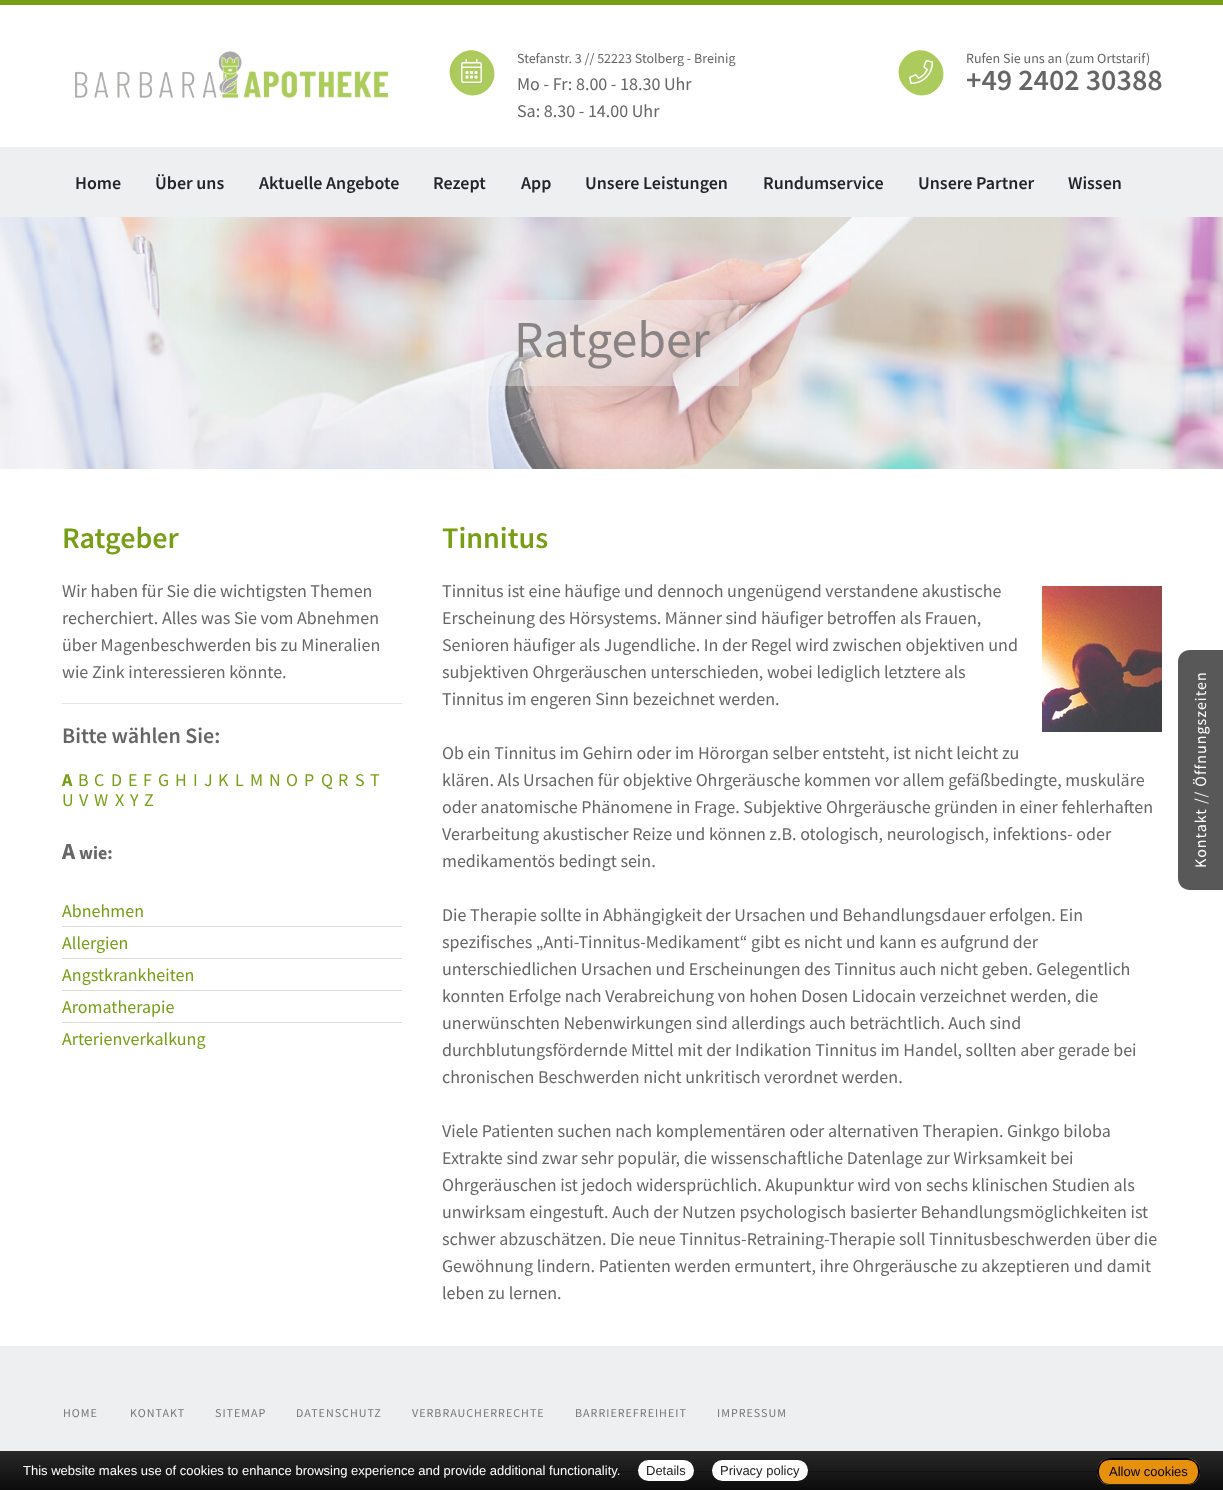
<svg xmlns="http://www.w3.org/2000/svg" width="1223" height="1490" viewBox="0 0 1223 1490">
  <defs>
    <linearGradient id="g1" gradientUnits="userSpaceOnUse" x1="612" y1="1451" x2="612" y2="1490"><stop offset="0" stop-color="rgb(30,30,30)" stop-opacity="0.95"/><stop offset="1" stop-color="rgb(0,0,0)" stop-opacity="0.95"/></linearGradient>
  </defs>
  <rect width="100%" height="100%" fill="rgb(255,255,255)"/>
  <rect x="0" y="0" width="1223" height="5" fill="rgb(119,158,20)"/>
  <image x="75" y="51" width="313" height="47" href="pic1.png"/>
  <path d="M456 57C477 36 508 68 488 89C467 109 436 78 456 57Z" fill="rgb(171,203,92)"/>
  <image x="461" y="59" width="21" height="24" href="pic2.png"/>
  <text x="517" y="63" font-family="Source Sans Pro" font-size="14" fill="rgb(102,102,102)">Stefanstr. 3 // 52223 Stolberg - Breinig</text>
  <g font-family="Source Sans Pro" font-size="18" fill="rgb(102,102,102)">
    <text>
      <tspan x="517" y="90">Mo - Fr: 8.00 - 18.30 Uhr</tspan>
      <tspan x="517" y="117">Sa: 8.30 - 14.00 Uhr</tspan>
    </text>
  </g>
  <path d="M905 57C926 36 957 68 937 89C916 109 885 78 905 57Z" fill="rgb(171,203,92)"/>
  <image x="909" y="60" width="24" height="24" href="pic3.png"/>
  <text x="966" y="63" font-family="Source Sans Pro" font-size="14" fill="rgb(102,102,102)">Rufen Sie uns an (zum Ortstarif)</text>
  <text x="966" y="90" font-family="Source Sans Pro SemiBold" font-size="30" font-weight="600" fill="rgb(102,102,102)">+49 2402 30388</text>
  <rect x="0" y="147" width="1223" height="70" fill="rgb(238,239,240)"/>
  <g font-family="Source Sans Pro SemiBold" font-size="18" font-weight="600" fill="rgb(33,37,41)">
    <text x="75" y="189">Home</text>
    <text x="155" y="189">Über uns</text>
    <text x="259" y="189">Aktuelle Angebote</text>
    <text x="433" y="189">Rezept</text>
    <text x="521" y="189">App</text>
    <text x="585" y="189">Unsere Leistungen</text>
    <text x="763" y="189">Rundumservice</text>
    <text x="918" y="189">Unsere Partner</text>
    <text x="1068" y="189">Wissen</text>
  </g>
  <image x="0" y="217" width="1223" height="252" href="pic4.png"/>
  <rect x="484" y="300" width="255" height="86" rx="1" fill="rgba(238,239,240,0.41)"/>
  <text x="514" y="357" font-family="Source Sans Pro" font-size="52" fill="rgb(137,131,131)">Ratgeber</text>
  <text x="62" y="548" font-family="Source Sans Pro SemiBold" font-size="30" font-weight="600" fill="rgb(119,158,20)">Ratgeber</text>
  <g font-family="Source Sans Pro" font-size="18" fill="rgb(102,102,102)">
    <text>
      <tspan x="62" y="597">Wir haben für Sie die wichtigsten Themen</tspan>
      <tspan x="62" y="624">recherchiert. Alles was Sie vom Abnehmen</tspan>
      <tspan x="62" y="651">über Magenbeschwerden bis zu Mineralien</tspan>
      <tspan x="62" y="678">wie Zink interessieren könnte.</tspan>
    </text>
  </g>
  <rect x="62" y="703" width="340" height="1" fill="rgb(230,230,230)"/>
  <text x="62" y="743" font-family="Source Sans Pro SemiBold" font-size="22" font-weight="600" fill="rgb(102,102,102)">Bitte wählen Sie:</text>
  <text x="62" y="786" font-family="Source Sans Pro" font-size="18" font-weight="bold" fill="rgb(119,158,20)">A</text>
  <g font-family="Source Sans Pro" font-size="18" fill="rgb(119,158,20)">
    <text x="78" y="786">B</text>
    <text x="94" y="786">C</text>
    <text x="111" y="786">D</text>
    <text x="128" y="786">E</text>
    <text x="143" y="786">F</text>
    <text x="158" y="786">G</text>
    <text x="175" y="786">H</text>
    <text x="193" y="786">I</text>
    <text x="204" y="786">J</text>
    <text x="218" y="786">K</text>
    <text x="235" y="786">L</text>
    <text x="250" y="786">M</text>
    <text x="269" y="786">N</text>
    <text x="286" y="786">O</text>
    <text x="304" y="786">P</text>
    <text x="321" y="786">Q</text>
    <text x="338" y="786">R</text>
    <text x="355" y="786">S</text>
    <text x="370" y="786">T</text>
    <text x="62" y="806">U</text>
    <text x="79" y="806">V</text>
    <text x="94" y="806">W</text>
    <text x="115" y="806">X</text>
    <text x="130" y="806">Y</text>
    <text x="144" y="806">Z</text>
  </g>
  <text x="62" y="859" font-family="Source Sans Pro" font-size="23" font-weight="bold" fill="rgb(102,102,102)">A</text>
  <text x="79" y="859" font-family="Source Sans Pro" font-size="18" font-weight="bold" fill="rgb(102,102,102)">wie:</text>
  <text x="62" y="917" font-family="Source Sans Pro" font-size="18" fill="rgb(119,158,20)">Abnehmen</text>
  <rect x="62" y="926" width="340" height="1" fill="rgb(221,221,221)"/>
  <text x="62" y="949" font-family="Source Sans Pro" font-size="18" fill="rgb(119,158,20)">Allergien</text>
  <rect x="62" y="958" width="340" height="1" fill="rgb(221,221,221)"/>
  <text x="62" y="981" font-family="Source Sans Pro" font-size="18" fill="rgb(119,158,20)">Angstkrankheiten</text>
  <rect x="62" y="990" width="340" height="1" fill="rgb(221,221,221)"/>
  <text x="62" y="1013" font-family="Source Sans Pro" font-size="18" fill="rgb(119,158,20)">Aromatherapie</text>
  <rect x="62" y="1022" width="340" height="1" fill="rgb(221,221,221)"/>
  <text x="62" y="1045" font-family="Source Sans Pro" font-size="18" fill="rgb(119,158,20)">Arterienverkalkung</text>
  <text x="442" y="548" font-family="Source Sans Pro SemiBold" font-size="30" font-weight="600" fill="rgb(119,158,20)">Tinnitus</text>
  <text x="442" y="597" font-family="Source Sans Pro" font-size="18" fill="rgb(102,102,102)">Tinnitus ist eine häufige und dennoch ungenügend verstandene akustische</text>
  <image x="1042" y="586" width="120" height="146" href="pic5.png"/>
  <g font-family="Source Sans Pro" font-size="18" fill="rgb(102,102,102)">
    <text>
      <tspan x="442" y="624">Erscheinung des Hörsystems. Männer sind häufiger betroffen als Frauen,</tspan>
      <tspan x="442" y="651">Senioren häufiger als Jugendliche. In der Regel wird zwischen objektiven und</tspan>
      <tspan x="442" y="678">subjektiven Ohrgeräuschen unterschieden, wobei lediglich letztere als</tspan>
      <tspan x="442" y="705">Tinnitus im engeren Sinn bezeichnet werden.</tspan>
    </text>
    <text>
      <tspan x="442" y="759">Ob ein Tinnitus im Gehirn oder im Hörorgan selber entsteht, ist nicht leicht zu</tspan>
      <tspan x="442" y="786">klären. Als Ursachen für objektive Ohrgeräusche kommen vor allem gefäßbedingte, muskuläre</tspan>
      <tspan x="442" y="813">oder anatomische Phänomene in Frage. Subjektive Ohrgeräusche gründen in einer fehlerhaften</tspan>
      <tspan x="442" y="840">Verarbeitung akustischer Reize und können z.B. otologisch, neurologisch, infektions- oder</tspan>
      <tspan x="442" y="867">medikamentös bedingt sein.</tspan>
    </text>
    <text>
      <tspan x="442" y="921">Die Therapie sollte in Abhängigkeit der Ursachen und Behandlungsdauer erfolgen. Ein</tspan>
      <tspan x="442" y="948">spezifisches „Anti-Tinnitus-Medikament“ gibt es nicht und kann es aufgrund der</tspan>
      <tspan x="442" y="975">unterschiedlichen Ursachen und Erscheinungen des Tinnitus auch nicht geben. Gelegentlich</tspan>
      <tspan x="442" y="1002">konnten Erfolge nach Verabreichung von hohen Dosen Lidocain verzeichnet werden, die</tspan>
      <tspan x="442" y="1029">unerwünschten Nebenwirkungen sind allerdings auch beträchtlich. Auch sind</tspan>
      <tspan x="442" y="1056">durchblutungsfördernde Mittel mit der Indikation Tinnitus im Handel, sollten aber gerade bei</tspan>
      <tspan x="442" y="1083">chronischen Beschwerden nicht unkritisch verordnet werden.</tspan>
    </text>
    <text>
      <tspan x="442" y="1137">Viele Patienten suchen nach komplementären oder alternativen Therapien. Ginkgo biloba</tspan>
      <tspan x="442" y="1164">Extrakte sind zwar sehr populär, die wissenschaftliche Datenlage zur Wirksamkeit bei</tspan>
      <tspan x="442" y="1191">Ohrgeräuschen ist jedoch widersprüchlich. Akupunktur wird von sechs klinischen Studien als</tspan>
      <tspan x="442" y="1218">unwirksam eingestuft. Auch der Nutzen psychologisch basierter Behandlungsmöglichkeiten ist</tspan>
      <tspan x="442" y="1245">schwer abzuschätzen. Die neue Tinnitus-Retraining-Therapie soll Tinnitusbeschwerden über die</tspan>
      <tspan x="442" y="1272">Gewöhnung lindern. Patienten werden ermuntert, ihre Ohrgeräusche zu akzeptieren und damit</tspan>
      <tspan x="442" y="1299">leben zu lernen.</tspan>
    </text>
  </g>
  <path d="M1178 878V662C1178 655 1183 650 1190 650H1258V890H1190C1183 890 1178 885 1178 878Z" fill="rgb(88,88,88)"/>
  <text x="1206" y="868" transform="rotate(-90 1206 868)" font-family="Source Sans Pro" font-size="16" letter-spacing="1" fill="rgb(255,255,255)">Kontakt // Öffnungszeiten</text>
  <rect x="0" y="1346" width="1223" height="144" fill="rgb(238,239,240)"/>
  <g font-family="Source Sans Pro" font-size="12" letter-spacing="1" fill="rgb(119,119,119)">
    <text x="63" y="1417">HOME</text>
    <text x="130" y="1417">KONTAKT</text>
    <text x="215" y="1417">SITEMAP</text>
    <text x="296" y="1417">DATENSCHUTZ</text>
    <text x="412" y="1417">VERBRAUCHERRECHTE</text>
    <text x="575" y="1417">BARRIEREFREIHEIT</text>
    <text x="717" y="1417">IMPRESSUM</text>
  </g>
  <rect x="57" y="1471" width="1040" height="1" fill="rgb(119,119,119)"/>
  <rect x="0" y="1451" width="1223" height="39" fill="url(#g1)"/>
  <text x="23" y="1475" font-family="Liberation Sans" font-size="13" fill="rgb(255,255,255)">This website makes use of cookies to enhance browsing experience and provide additional functionality.</text>
  <rect x="638" y="1460" width="56" height="21" rx="10.5" fill="rgb(255,255,255)"/>
  <text x="646" y="1475" font-family="Liberation Sans" font-size="13" fill="rgb(34,34,34)">Details</text>
  <rect x="712" y="1460" width="96" height="21" rx="10.5" fill="rgb(255,255,255)"/>
  <text x="720" y="1475" font-family="Liberation Sans" font-size="13" fill="rgb(34,34,34)">Privacy policy</text>
  <rect x="1097" y="1458" width="103" height="27" rx="13" fill="rgb(230,144,14)"/>
  <path d="M1110 1458C1106 1458 1103 1460 1101 1462L1102 1463C1104 1461 1107 1460 1110 1460H1187C1190 1460 1193 1461 1195 1463L1196 1462C1194 1460 1190 1458 1187 1458Z" fill="rgb(0,0,0)"/>
  <path d="M1200 1472C1200 1468 1199 1464.5 1196 1462L1195 1463C1199.5 1468 1199 1477.5 1193.5 1482L1194.5 1482.5C1198 1480 1200 1476 1200 1472Z" fill="rgb(0,0,0)"/>
  <path d="M1110 1485H1187C1190 1485 1193 1484 1195 1482H1194C1192 1483 1189 1484 1187 1484H1110C1108 1484 1105 1483 1103 1482H1102C1104 1484 1107 1485 1110 1485Z" fill="rgb(34,34,34)"/>
  <path d="M1097 1471C1097 1475.5 1098.5 1479.5 1102.5 1482.5L1103.5 1482C1098 1477.5 1097.5 1468 1102 1463L1101 1462C1098.5 1464 1097 1467.5 1097 1471Z" fill="rgb(0,0,0)"/>
  <text x="1109" y="1476" font-family="Liberation Sans" font-size="13" fill="rgb(0,0,0)">Allow cookies</text>
</svg>
